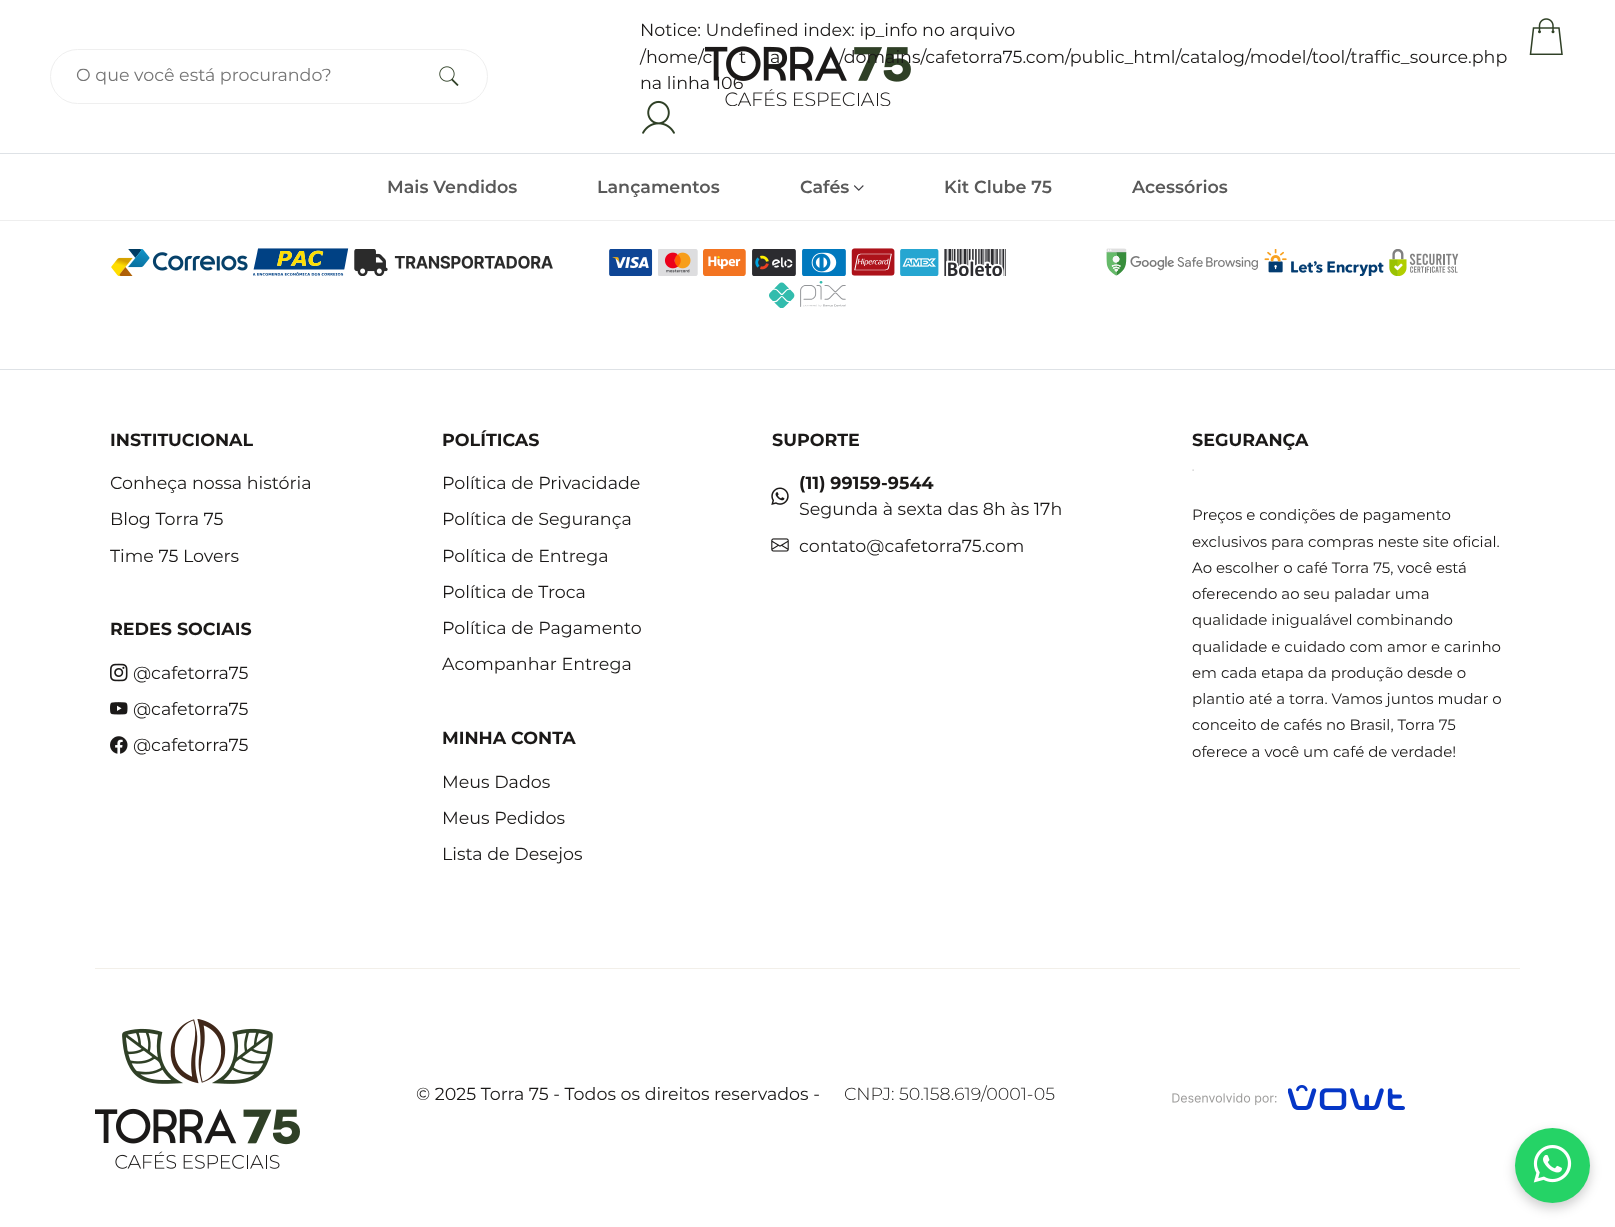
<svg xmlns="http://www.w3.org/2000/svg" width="1615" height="1227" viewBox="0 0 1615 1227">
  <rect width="100%" height="100%" fill="rgb(255,255,255)"/>
  <text x="640" y="36" font-family="Montserrat" font-size="17.5" fill="rgb(27,25,24)">Notice: Undefined index: ip_info no arquivo</text>
  <image x="705" y="46" width="206" height="60" href="pic4.png"/>
  <g font-family="Montserrat" font-size="17.5" fill="rgb(27,25,24)">
    <text x="640" y="63">/home/c</text>
    <text x="739" y="63">t</text>
    <text x="770" y="63">a</text>
    <text x="839" y="63">/domains/cafetorra75.com/public_html/catalog/model/tool/traffic_source.php</text>
    <text x="640" y="89">na linha 106</text>
  </g>
  <image x="642" y="100" width="33" height="34" href="pic1.png"/>
  <image x="1529" y="18" width="34" height="37" href="pic2.png"/>
  <rect x="50.5" y="49.5" width="437" height="54" rx="27" fill="none" stroke="rgb(239,239,239)"/>
  <text x="76" y="81" font-family="Montserrat" font-size="17.5" fill="rgb(117,117,117)">O que você está procurando?</text>
  <image x="439" y="66" width="20" height="20" href="pic3.png"/>
  <rect x="0" y="153" width="1615" height="1" fill="rgb(222,226,230)"/>
  <rect x="0" y="220" width="1615" height="1" fill="rgb(238,238,238)"/>
  <g font-family="Montserrat" font-size="17.5" font-weight="600" fill="rgb(89,89,89)">
    <text x="387" y="193">Mais Vendidos</text>
    <text x="597" y="193">Lançamentos</text>
    <text x="800" y="193">Cafés</text>
  </g>
  <image x="854" y="185" width="10" height="6" href="pic5.png"/>
  <g font-family="Montserrat" font-size="17.5" font-weight="600" fill="rgb(89,89,89)">
    <text x="944" y="193">Kit Clube 75</text>
    <text x="1132" y="193">Acessórios</text>
  </g>
  <rect x="0" y="369" width="1615" height="1" fill="rgb(222,226,230)"/>
  <image x="111" y="249" width="137" height="27" href="pic6.png"/>
  <image x="253" y="248" width="96" height="28" href="pic7.png"/>
  <image x="354" y="249" width="199" height="27" href="pic8.png"/>
  <image x="609" y="249" width="44" height="27" href="pic9.png"/>
  <image x="658" y="249" width="40" height="27" href="pic10.png"/>
  <image x="703" y="249" width="43" height="27" href="pic11.png"/>
  <image x="752" y="249" width="44" height="27" href="pic12.png"/>
  <image x="802" y="249" width="44" height="27" href="pic13.png"/>
  <image x="851" y="248" width="44" height="28" href="pic14.png"/>
  <image x="900" y="249" width="39" height="27" href="pic15.png"/>
  <image x="944" y="249" width="62" height="27" href="pic16.png"/>
  <image x="769" y="281" width="77" height="27" href="pic17.png"/>
  <image x="1106" y="248" width="152" height="28" href="pic18.png"/>
  <image x="1264" y="249" width="120" height="27" href="pic19.png"/>
  <image x="1389" y="249" width="70" height="27" href="pic20.png"/>
  <text x="110" y="446" font-family="Montserrat" font-size="17.5" font-weight="bold" fill="rgb(27,25,24)">INSTITUCIONAL</text>
  <g font-family="Montserrat" font-size="17.5" fill="rgb(27,25,24)">
    <text x="110" y="489">Conheça nossa história</text>
    <text x="110" y="525">Blog Torra 75</text>
    <text x="110" y="562">Time 75 Lovers</text>
  </g>
  <text x="110" y="635" font-family="Montserrat" font-size="17.5" font-weight="bold" fill="rgb(27,25,24)">REDES SOCIAIS</text>
  <image x="110" y="663" width="18" height="19" href="pic21.png"/>
  <text x="133" y="679" font-family="Montserrat" font-size="17.5" fill="rgb(27,25,24)">@cafetorra75</text>
  <image x="110" y="702" width="18" height="13" href="pic22.png"/>
  <text x="133" y="715" font-family="Montserrat" font-size="17.5" fill="rgb(27,25,24)">@cafetorra75</text>
  <image x="110" y="736" width="18" height="18" href="pic23.png"/>
  <text x="133" y="751" font-family="Montserrat" font-size="17.5" fill="rgb(27,25,24)">@cafetorra75</text>
  <text x="442" y="446" font-family="Montserrat" font-size="17.5" font-weight="bold" fill="rgb(27,25,24)">POLÍTICAS</text>
  <g font-family="Montserrat" font-size="17.5" fill="rgb(27,25,24)">
    <text x="442" y="489">Política de Privacidade</text>
    <text x="442" y="525">Política de Segurança</text>
    <text x="442" y="562">Política de Entrega</text>
    <text x="442" y="598">Política de Troca</text>
    <text x="442" y="634">Política de Pagamento</text>
    <text x="442" y="670">Acompanhar Entrega</text>
  </g>
  <text x="442" y="744" font-family="Montserrat" font-size="17.5" font-weight="bold" fill="rgb(27,25,24)">MINHA CONTA</text>
  <g font-family="Montserrat" font-size="17.5" fill="rgb(27,25,24)">
    <text x="442" y="788">Meus Dados</text>
    <text x="442" y="824">Meus Pedidos</text>
    <text x="442" y="860">Lista de Desejos</text>
  </g>
  <text x="772" y="446" font-family="Montserrat" font-size="17.5" font-weight="bold" fill="rgb(27,25,24)">SUPORTE</text>
  <image x="771" y="487" width="18" height="18" href="pic24.png"/>
  <text x="799" y="489" font-family="Montserrat" font-size="17.5" font-weight="bold" fill="rgb(27,25,24)">(11) 99159-9544</text>
  <text x="799" y="515" font-family="Montserrat" font-size="17.5" fill="rgb(27,25,24)">Segunda à sexta das 8h às 17h</text>
  <image x="771" y="538" width="18" height="14" href="pic25.png"/>
  <text x="799" y="552" font-family="Montserrat" font-size="17.5" fill="rgb(27,25,24)">contato@cafetorra75.com</text>
  <text x="1192" y="446" font-family="Montserrat" font-size="17.5" font-weight="bold" fill="rgb(27,25,24)">SEGURANÇA</text>
  <image x="1192" y="469" width="2" height="2" href="pic26.png"/>
  <g font-family="Montserrat" font-size="15" fill="rgb(27,25,24)">
    <text>
      <tspan x="1192" y="520">Preços e condições de pagamento</tspan>
      <tspan x="1192" y="547">exclusivos para compras neste site oficial.</tspan>
      <tspan x="1192" y="573">Ao escolher o café Torra 75, você está</tspan>
      <tspan x="1192" y="599">oferecendo ao seu paladar uma</tspan>
      <tspan x="1192" y="625">qualidade inigualável combinando</tspan>
      <tspan x="1192" y="652">qualidade e cuidado com amor e carinho</tspan>
      <tspan x="1192" y="678">em cada etapa da produção desde o</tspan>
      <tspan x="1192" y="704">plantio até a torra. Vamos juntos mudar o</tspan>
      <tspan x="1192" y="730">conceito de cafés no Brasil, Torra 75</tspan>
      <tspan x="1192" y="757">oferece a você um café de verdade!</tspan>
    </text>
  </g>
  <rect x="95" y="968" width="1425" height="1" fill="rgb(242,239,233)"/>
  <image x="95" y="1019" width="205" height="150" href="pic27.png"/>
  <text x="416" y="1100" font-family="Montserrat" font-size="17.5" fill="rgb(27,25,24)">© 2025 Torra 75 - Todos os direitos reservados -</text>
  <text x="844" y="1100" font-family="Montserrat" font-size="17.5" font-weight="300" fill="rgb(27,25,24)">CNPJ: 50.158.619/0001-05</text>
  <image x="1172" y="1085" width="233" height="25" href="pic28.png"/>
  <rect x="1515" y="1133" width="75" height="75" rx="37.5" fill="rgba(0,0,0,0.2)" filter="blur(6px)"/>
  <circle cx="1552.5" cy="1165.5" r="37.5" fill="rgb(37,211,102)"/>
  <image x="1533" y="1145" width="39" height="38" href="pic29.png"/>
</svg>
